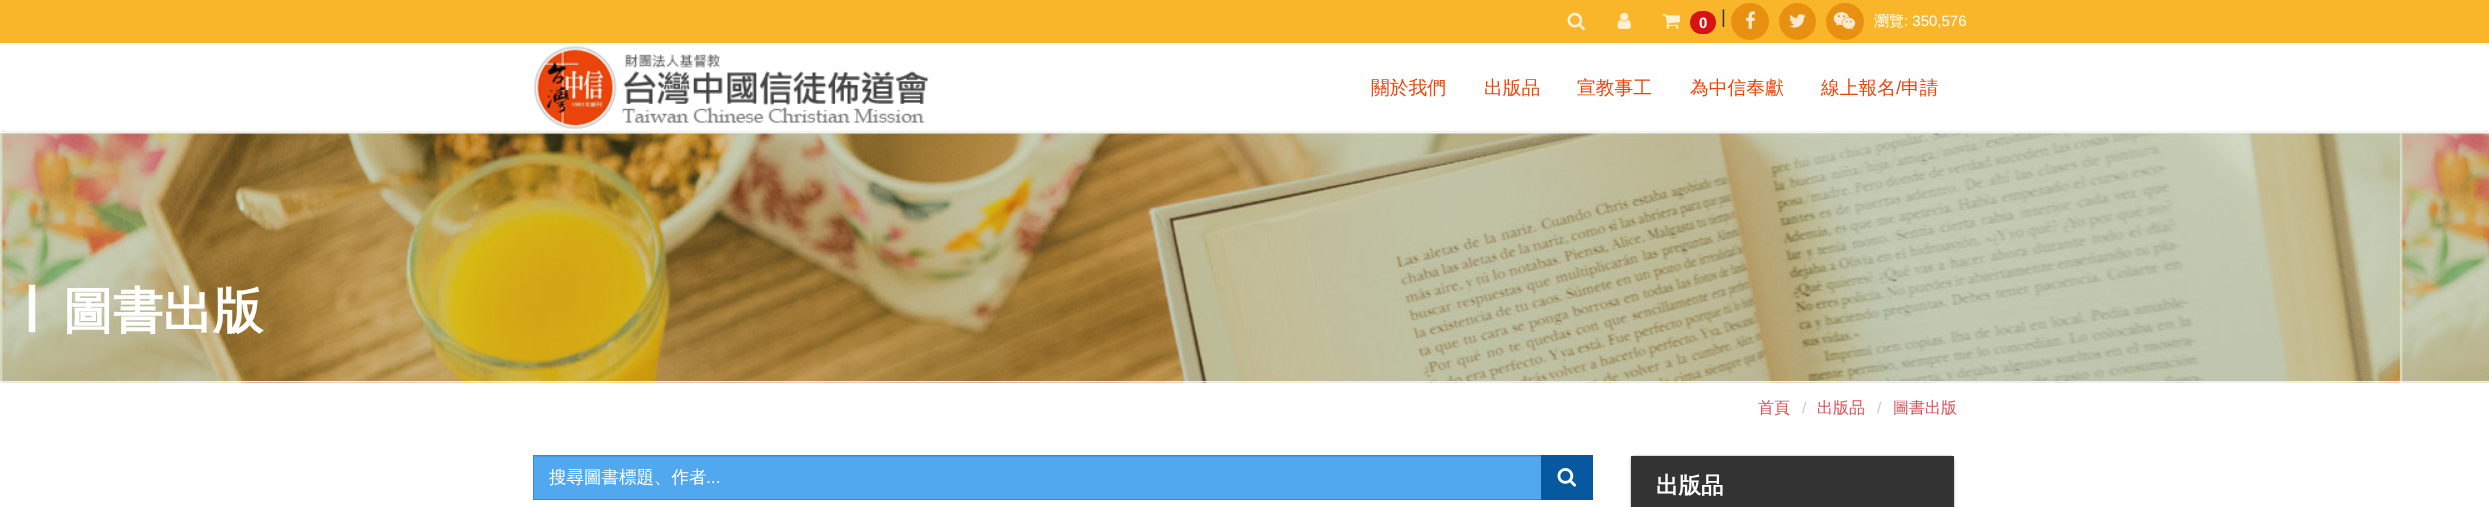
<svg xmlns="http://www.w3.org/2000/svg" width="2489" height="507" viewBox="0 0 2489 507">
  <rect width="100%" height="100%" fill="rgb(255,255,255)"/>
  <rect x="0" y="0" width="2489" height="43" fill="rgb(249,182,42)"/>
  <image x="1567" y="12" width="18" height="19" href="pic1.png"/>
  <image x="1617" y="12" width="14" height="17" href="pic2.png"/>
  <image x="1662" y="14" width="18" height="15" href="pic3.png"/>
  <rect x="1690" y="11" width="26" height="23" rx="11.5" fill="rgb(216,18,18)"/>
  <text x="1699" y="28" font-family="Liberation Sans" font-size="15" font-weight="bold" fill="rgb(255,255,255)">0</text>
  <text x="1721" y="23" font-family="Liberation Sans" font-size="18.75" fill="rgb(51,51,51)">|</text>
  <rect x="1731" y="3" width="38" height="37" rx="18.5" fill="rgb(232,144,17)"/>
  <image x="1746" y="11" width="10" height="18" href="pic4.png"/>
  <circle cx="1797.5" cy="21.5" r="18.5" fill="rgb(232,144,17)"/>
  <image x="1789" y="14" width="17" height="14" href="pic5.png"/>
  <rect x="1826" y="3" width="38" height="37" rx="18.5" fill="rgb(232,144,17)"/>
  <image x="1833" y="12" width="23" height="18" href="pic6.png"/>
  <text x="1874" y="26" font-family="WenQuanYi Zen Hei" font-size="15" font-weight="500" fill="rgb(255,255,255)">瀏覽</text>
  <text x="1904" y="26" font-family="Liberation Sans" font-size="15" fill="rgb(255,255,255)">: 350,576</text>
  <path d="M2488 130.5L2485 132H5L2 130.5" fill="none" stroke="rgb(226,226,226)" stroke-width="1.2"/>
  <image x="533" y="46" width="396" height="83" href="pic7.png"/>
  <g font-family="WenQuanYi Zen Hei" font-size="18.75" font-weight="500" fill="rgb(235,69,11)">
    <text x="1371" y="94">關於我們</text>
    <text x="1484" y="94">出版品</text>
    <text x="1577" y="94">宣教事工</text>
    <text x="1690" y="94">為中信奉獻</text>
    <text x="1821" y="94">線上報名</text>
  </g>
  <text x="1896" y="94" font-family="Liberation Sans" font-size="18.75" fill="rgb(235,69,11)">/</text>
  <text x="1901" y="94" font-family="WenQuanYi Zen Hei" font-size="18.75" font-weight="500" fill="rgb(235,69,11)">申請</text>
  <image x="0" y="132" width="2489" height="251" href="pic8.png"/>
  <rect x="0" y="381" width="2489" height="1" fill="rgb(238,238,238)"/>
  <text x="25" y="321" font-family="Liberation Sans" font-size="50" font-weight="bold" fill="rgb(255,255,255)">|</text>
  <text x="63" y="328" font-family="WenQuanYi Zen Hei" font-size="50" font-weight="bold" fill="rgb(255,255,255)">圖書出版</text>
  <text x="1758" y="413" font-family="WenQuanYi Zen Hei" font-size="16" font-weight="500" fill="rgb(219,79,88)">首頁</text>
  <text x="1802" y="413" font-family="Liberation Sans" font-size="16" fill="rgb(204,204,204)">/</text>
  <text x="1817" y="413" font-family="WenQuanYi Zen Hei" font-size="16" font-weight="500" fill="rgb(219,79,88)">出版品</text>
  <text x="1877" y="413" font-family="Liberation Sans" font-size="16" fill="rgb(204,204,204)">/</text>
  <text x="1893" y="413" font-family="WenQuanYi Zen Hei" font-size="16" font-weight="500" fill="rgb(219,79,88)">圖書出版</text>
  <rect x="534" y="457" width="1007" height="42" fill="rgb(81,168,239)"/>
  <rect x="534" y="456" width="1007" height="1" fill="rgb(75,155,221)"/>
  <rect x="533.5" y="455.5" width="1009" height="44" fill="none" stroke="rgb(50,141,216)"/>
  <text x="549" y="483" font-family="WenQuanYi Zen Hei" font-size="17.5" font-weight="500" fill="rgb(255,255,255)">搜尋圖書標題、作者</text>
  <text x="706" y="483" font-family="Liberation Sans" font-size="17.5" fill="rgb(255,255,255)">...</text>
  <rect x="1541" y="455" width="52" height="45" fill="rgb(6,89,158)"/>
  <image x="1557" y="468" width="20" height="19" href="pic9.png"/>
  <rect x="1630" y="456" width="325" height="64" rx="5" fill="rgba(0,0,0,0.07)" filter="blur(2.5px)"/>
  <rect x="1630.5" y="455.5" width="324" height="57" rx="4.5" fill="none" stroke="rgb(221,221,221)"/>
  <rect x="1631" y="456" width="323" height="51" fill="rgb(51,51,51)"/>
  <text x="1656" y="493" font-family="WenQuanYi Zen Hei" font-size="22.5" font-weight="bold" fill="rgb(255,255,255)">出版品</text>
</svg>
